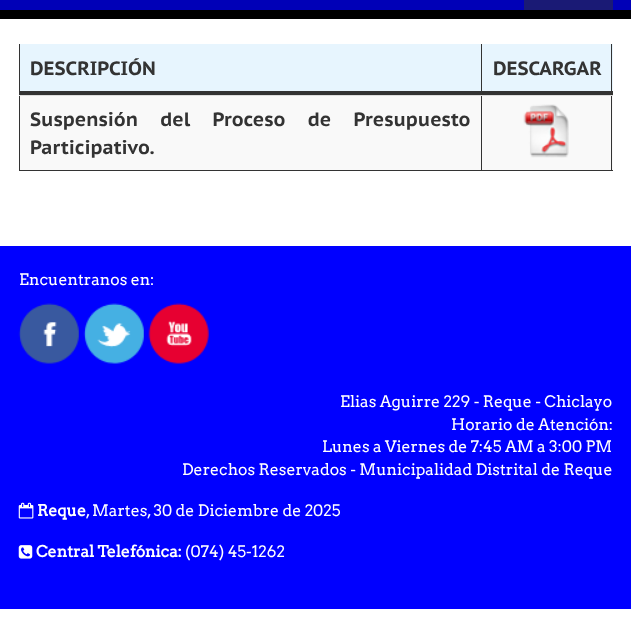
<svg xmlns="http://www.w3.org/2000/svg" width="631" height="633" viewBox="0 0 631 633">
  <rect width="100%" height="100%" fill="rgb(255,255,255)"/>
  <rect x="0" y="0" width="631" height="10" fill="rgb(0,0,183)"/>
  <rect x="0" y="10" width="631" height="9" fill="rgb(0,0,0)"/>
  <rect x="524" y="0" width="89" height="10" fill="rgb(26,26,117)"/>
  <rect x="20" y="44" width="593" height="47" fill="rgb(231,245,254)"/>
  <rect x="20" y="96" width="593" height="74" fill="rgb(249,249,249)"/>
  <rect x="611" y="44" width="1" height="127" fill="rgb(51,51,51)"/>
  <rect x="481" y="170" width="132" height="1" fill="rgb(51,51,51)"/>
  <rect x="481" y="44" width="1" height="127" fill="rgb(51,51,51)"/>
  <rect x="19" y="170" width="464" height="1" fill="rgb(51,51,51)"/>
  <rect x="19" y="44" width="1" height="127" fill="rgb(51,51,51)"/>
  <rect x="19" y="91" width="594" height="4" fill="rgb(51,51,51)"/>
  <text x="30" y="75" font-family="PT Sans Caption" font-size="19.25" font-weight="bold" fill="rgb(51,51,51)">DESCRIPCIÓN</text>
  <rect x="19" y="95" width="594" height="1" fill="rgb(221,221,221)"/>
  <g font-family="PT Sans Caption" font-size="19.25" font-weight="bold" fill="rgb(51,51,51)">
    <text x="493" y="75">DESCARGAR</text>
    <text>
      <tspan x="30" y="126" word-spacing="17">Suspensión del Proceso de Presupuesto</tspan>
      <tspan x="30" y="154">Participativo.</tspan>
    </text>
  </g>
  <image x="523" y="104" width="46" height="54" href="pic1.png"/>
  <rect x="0" y="246" width="631" height="363" fill="rgb(0,0,255)"/>
  <text x="19" y="285" font-family="Arvo" font-size="15.75" fill="rgb(255,255,255)">Encuentranos en:</text>
  <image x="18" y="303" width="61" height="61" href="pic2.png"/>
  <image x="83" y="303" width="61" height="61" href="pic3.png"/>
  <image x="148" y="303" width="61" height="61" href="pic4.png"/>
  <g font-family="Arvo" font-size="15.75" fill="rgb(255,255,255)">
    <text x="340" y="407">Elias Aguirre 229 - Reque - Chiclayo</text>
    <text x="451" y="430">Horario de Atención:</text>
    <text x="322" y="452">Lunes a Viernes de 7:45 AM a 3:00 PM</text>
    <text x="182" y="475">Derechos Reservados - Municipalidad Distrital de Reque</text>
  </g>
  <image x="18" y="502" width="16" height="17" href="pic5.png"/>
  <text x="37" y="516" font-family="Arvo" font-size="15.75" font-weight="bold" fill="rgb(255,255,255)">Reque</text>
  <text x="86" y="516" font-family="Arvo" font-size="15.75" fill="rgb(255,255,255)">, Martes, 30 de Diciembre de 2025</text>
  <image x="18" y="545" width="15" height="14" href="pic6.png"/>
  <text x="36" y="557" font-family="Arvo" font-size="15.75" font-weight="bold" fill="rgb(255,255,255)">Central Telefónica:</text>
  <text x="185" y="557" font-family="Arvo" font-size="15.75" fill="rgb(255,255,255)">(074) 45-1262</text>
</svg>
